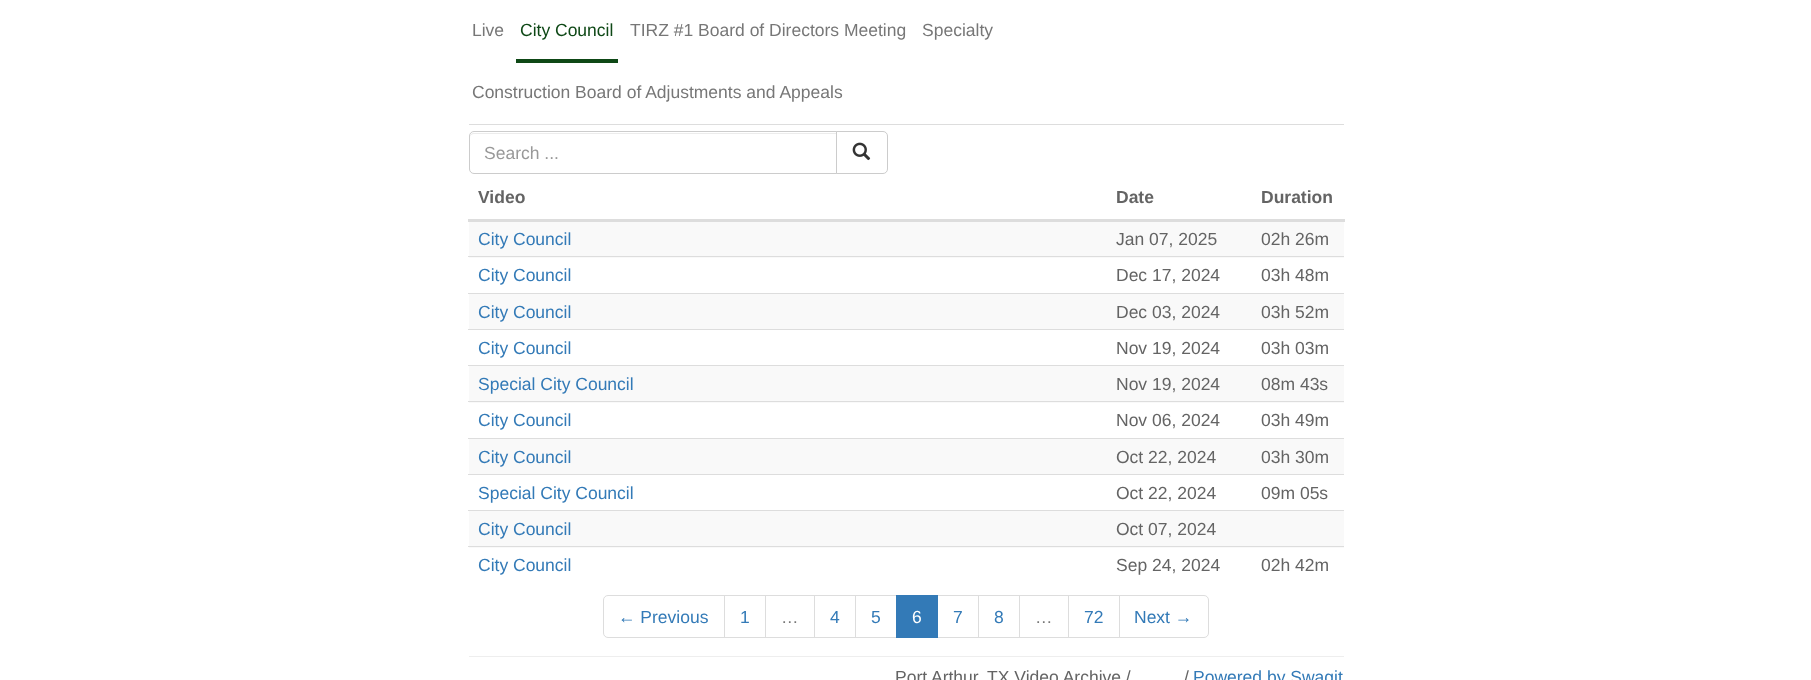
<svg xmlns="http://www.w3.org/2000/svg" width="1811" height="680" viewBox="0 0 1811 680">
  <rect width="100%" height="100%" fill="rgb(255,255,255)"/>
  <rect x="469" y="124" width="875" height="1" fill="rgb(221,221,221)"/>
  <text x="472" y="36" font-family="Liberation Sans" font-size="17.5" fill="rgb(119,119,119)">Live</text>
  <rect x="516" y="59" width="102" height="4" fill="rgb(14,72,22)"/>
  <text x="520" y="36" font-family="Liberation Sans" font-size="17.5" fill="rgb(14,72,22)">City Council</text>
  <g font-family="Liberation Sans" font-size="17.5" fill="rgb(119,119,119)">
    <text x="630" y="36">TIRZ #1 Board of Directors Meeting</text>
    <text x="922" y="36">Specialty</text>
    <text x="472" y="98">Construction Board of Adjustments and Appeals</text>
  </g>
  <path d="M474 134H836V133H474C471 133 470 135 470 138C470 135 472 134 474 134Z" fill="rgb(236,236,236)"/>
  <path d="M474 131.5H837.5V173.5H474C471.5 173.5 469.5 171.5 469.5 169V136C469.5 133.5 471.5 131.5 474 131.5Z" fill="none" stroke="rgb(204,204,204)"/>
  <text x="484" y="159" font-family="Liberation Sans" font-size="17.5" fill="rgb(153,153,153)">Search ...</text>
  <path d="M836.5 131.5H883C885.5 131.5 887.5 133.5 887.5 136V169C887.5 171.5 885.5 173.5 883 173.5H836.5Z" fill="rgb(255,255,255)" stroke="rgb(204,204,204)"/>
  <image x="852" y="142" width="19" height="19" href="pic1.png"/>
  <g font-family="Liberation Sans" font-size="17.5" font-weight="bold" fill="rgb(100,100,100)">
    <text x="478" y="203">Video</text>
    <text x="1116" y="203">Date</text>
  </g>
  <rect x="468" y="219" width="877" height="3" fill="rgb(221,221,221)"/>
  <text x="1261" y="203" font-family="Liberation Sans" font-size="17.5" font-weight="bold" fill="rgb(100,100,100)">Duration</text>
  <rect x="469" y="222" width="875" height="36" fill="rgb(249,249,249)"/>
  <text x="478" y="245" font-family="Liberation Sans" font-size="17.5" fill="rgb(51,122,183)">City Council</text>
  <g font-family="Liberation Sans" font-size="17.5" fill="rgb(100,100,100)">
    <text x="1116" y="245">Jan 07, 2025</text>
    <text x="1261" y="245">02h 26m</text>
  </g>
  <text x="478" y="281" font-family="Liberation Sans" font-size="17.5" fill="rgb(51,122,183)">City Council</text>
  <text x="1116" y="281" font-family="Liberation Sans" font-size="17.5" fill="rgb(100,100,100)">Dec 17, 2024</text>
  <rect x="468" y="256" width="876" height="1" fill="rgb(221,221,221)"/>
  <text x="1261" y="281" font-family="Liberation Sans" font-size="17.5" fill="rgb(100,100,100)">03h 48m</text>
  <rect x="469" y="294" width="875" height="35" fill="rgb(249,249,249)"/>
  <text x="478" y="318" font-family="Liberation Sans" font-size="17.5" fill="rgb(51,122,183)">City Council</text>
  <text x="1116" y="318" font-family="Liberation Sans" font-size="17.5" fill="rgb(100,100,100)">Dec 03, 2024</text>
  <rect x="468" y="293" width="876" height="1" fill="rgb(221,221,221)"/>
  <text x="1261" y="318" font-family="Liberation Sans" font-size="17.5" fill="rgb(100,100,100)">03h 52m</text>
  <text x="478" y="354" font-family="Liberation Sans" font-size="17.5" fill="rgb(51,122,183)">City Council</text>
  <text x="1116" y="354" font-family="Liberation Sans" font-size="17.5" fill="rgb(100,100,100)">Nov 19, 2024</text>
  <rect x="468" y="329" width="876" height="1" fill="rgb(221,221,221)"/>
  <text x="1261" y="354" font-family="Liberation Sans" font-size="17.5" fill="rgb(100,100,100)">03h 03m</text>
  <rect x="469" y="366" width="875" height="37" fill="rgb(249,249,249)"/>
  <text x="478" y="390" font-family="Liberation Sans" font-size="17.5" fill="rgb(51,122,183)">Special City Council</text>
  <text x="1116" y="390" font-family="Liberation Sans" font-size="17.5" fill="rgb(100,100,100)">Nov 19, 2024</text>
  <rect x="468" y="365" width="876" height="1" fill="rgb(221,221,221)"/>
  <text x="1261" y="390" font-family="Liberation Sans" font-size="17.5" fill="rgb(100,100,100)">08m 43s</text>
  <text x="478" y="426" font-family="Liberation Sans" font-size="17.5" fill="rgb(51,122,183)">City Council</text>
  <text x="1116" y="426" font-family="Liberation Sans" font-size="17.5" fill="rgb(100,100,100)">Nov 06, 2024</text>
  <rect x="468" y="401" width="876" height="1" fill="rgb(221,221,221)"/>
  <text x="1261" y="426" font-family="Liberation Sans" font-size="17.5" fill="rgb(100,100,100)">03h 49m</text>
  <rect x="469" y="439" width="875" height="35" fill="rgb(249,249,249)"/>
  <text x="478" y="463" font-family="Liberation Sans" font-size="17.5" fill="rgb(51,122,183)">City Council</text>
  <text x="1116" y="463" font-family="Liberation Sans" font-size="17.5" fill="rgb(100,100,100)">Oct 22, 2024</text>
  <rect x="468" y="438" width="876" height="1" fill="rgb(221,221,221)"/>
  <text x="1261" y="463" font-family="Liberation Sans" font-size="17.5" fill="rgb(100,100,100)">03h 30m</text>
  <text x="478" y="499" font-family="Liberation Sans" font-size="17.5" fill="rgb(51,122,183)">Special City Council</text>
  <text x="1116" y="499" font-family="Liberation Sans" font-size="17.5" fill="rgb(100,100,100)">Oct 22, 2024</text>
  <rect x="468" y="474" width="876" height="1" fill="rgb(221,221,221)"/>
  <text x="1261" y="499" font-family="Liberation Sans" font-size="17.5" fill="rgb(100,100,100)">09m 05s</text>
  <rect x="469" y="511" width="875" height="37" fill="rgb(249,249,249)"/>
  <rect x="468" y="510" width="876" height="1" fill="rgb(221,221,221)"/>
  <text x="478" y="535" font-family="Liberation Sans" font-size="17.5" fill="rgb(51,122,183)">City Council</text>
  <text x="1116" y="535" font-family="Liberation Sans" font-size="17.5" fill="rgb(100,100,100)">Oct 07, 2024</text>
  <text x="478" y="571" font-family="Liberation Sans" font-size="17.5" fill="rgb(51,122,183)">City Council</text>
  <text x="1116" y="571" font-family="Liberation Sans" font-size="17.5" fill="rgb(100,100,100)">Sep 24, 2024</text>
  <rect x="468" y="546" width="876" height="1" fill="rgb(221,221,221)"/>
  <text x="1261" y="571" font-family="Liberation Sans" font-size="17.5" fill="rgb(100,100,100)">02h 42m</text>
  <path d="M608 595.5H724.5V637.5H608C605.5 637.5 603.5 635.5 603.5 633V600C603.5 597.5 605.5 595.5 608 595.5Z" fill="none" stroke="rgb(221,221,221)"/>
  <text x="618" y="623" font-family="Liberation Sans" font-size="17.5" fill="rgb(51,122,183)">← Previous</text>
  <rect x="724.5" y="595.5" width="41" height="42" fill="none" stroke="rgb(221,221,221)"/>
  <text x="740" y="623" font-family="Liberation Sans" font-size="17.5" fill="rgb(51,122,183)">1</text>
  <rect x="765.5" y="595.5" width="49" height="42" fill="none" stroke="rgb(221,221,221)"/>
  <text x="781" y="623" font-family="Liberation Sans" font-size="17.5" fill="rgb(119,119,119)">…</text>
  <rect x="814.5" y="595.5" width="41" height="42" fill="none" stroke="rgb(221,221,221)"/>
  <text x="830" y="623" font-family="Liberation Sans" font-size="17.5" fill="rgb(51,122,183)">4</text>
  <rect x="855.5" y="595.5" width="42" height="42" fill="none" stroke="rgb(221,221,221)"/>
  <text x="871" y="623" font-family="Liberation Sans" font-size="17.5" fill="rgb(51,122,183)">5</text>
  <rect x="936.5" y="595.5" width="42" height="42" fill="none" stroke="rgb(221,221,221)"/>
  <rect x="896" y="595" width="42" height="43" fill="rgb(51,122,183)"/>
  <text x="912" y="623" font-family="Liberation Sans" font-size="17.5" fill="rgb(255,255,255)">6</text>
  <text x="953" y="623" font-family="Liberation Sans" font-size="17.5" fill="rgb(51,122,183)">7</text>
  <rect x="978.5" y="595.5" width="41" height="42" fill="none" stroke="rgb(221,221,221)"/>
  <text x="994" y="623" font-family="Liberation Sans" font-size="17.5" fill="rgb(51,122,183)">8</text>
  <rect x="1019.5" y="595.5" width="49" height="42" fill="none" stroke="rgb(221,221,221)"/>
  <text x="1035" y="623" font-family="Liberation Sans" font-size="17.5" fill="rgb(119,119,119)">…</text>
  <rect x="1068.5" y="595.5" width="51" height="42" fill="none" stroke="rgb(221,221,221)"/>
  <text x="1084" y="623" font-family="Liberation Sans" font-size="17.5" fill="rgb(51,122,183)">72</text>
  <path d="M1119.5 595.5H1204C1206.5 595.5 1208.5 597.5 1208.5 600V633C1208.5 635.5 1206.5 637.5 1204 637.5H1119.5Z" fill="rgb(255,255,255)" stroke="rgb(221,221,221)"/>
  <text x="1134" y="623" font-family="Liberation Sans" font-size="17.5" fill="rgb(51,122,183)">Next →</text>
  <rect x="469" y="656" width="875" height="1" fill="rgb(238,238,238)"/>
  <g font-family="Liberation Sans" font-size="17.5" fill="rgb(100,100,100)">
    <text x="895" y="683">Port Arthur, TX Video Archive /</text>
    <text x="1184" y="683">/</text>
  </g>
  <text x="1193" y="683" font-family="Liberation Sans" font-size="17.5" fill="rgb(51,122,183)">Powered by Swagit</text>
</svg>
